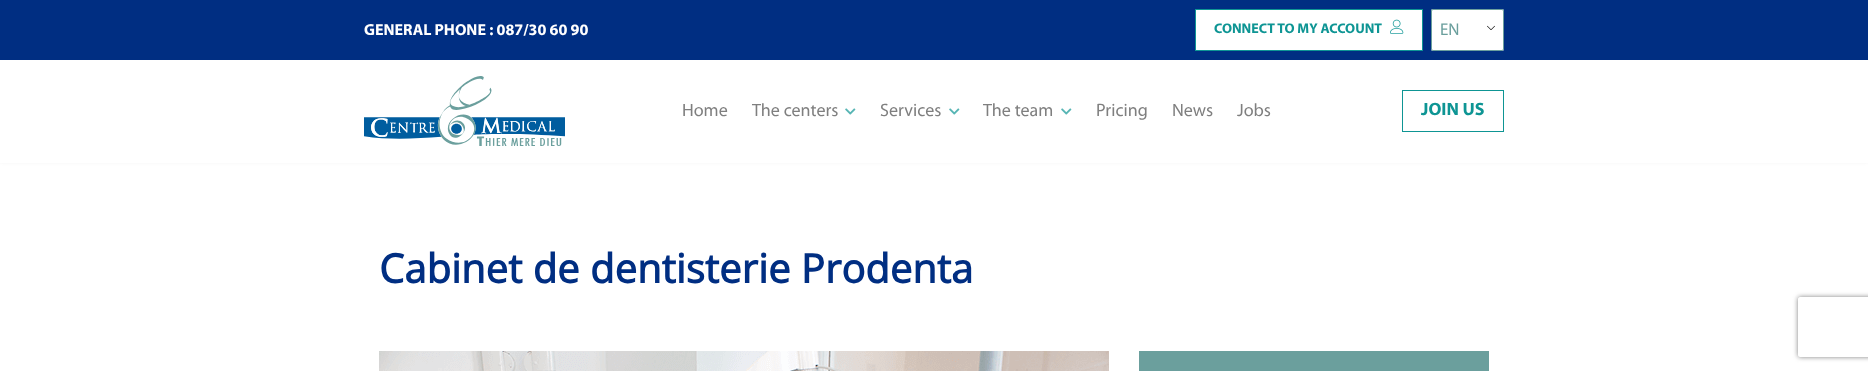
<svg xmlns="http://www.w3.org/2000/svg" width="1868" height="371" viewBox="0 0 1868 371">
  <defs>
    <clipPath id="clip1"><path d="M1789 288H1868V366H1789ZM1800 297H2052C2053 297 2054 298 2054 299V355C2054 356 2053 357 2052 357H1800C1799 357 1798 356 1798 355V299C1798 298 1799 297 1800 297Z" clip-rule="evenodd"/></clipPath>
  </defs>
  <rect width="100%" height="100%" fill="rgb(255,255,255)"/>
  <rect x="0" y="0" width="1868" height="163" fill="rgba(234,234,234,0.5)" filter="blur(1.5px)"/>
  <rect x="0" y="60" width="1868" height="103" fill="rgb(255,255,255)"/>
  <rect x="0" y="0" width="1868" height="60" fill="rgb(0,46,130)"/>
  <text x="364" y="35" font-family="Myriad" font-size="16" font-weight="bold" fill="rgb(255,255,255)">GENERAL PHONE : 087/30 60 90</text>
  <rect x="1195.5" y="9.5" width="227" height="41" fill="rgb(255,255,255)" stroke="rgb(14,149,148)"/>
  <text x="1214" y="33" font-family="Myriad" font-size="14" font-weight="bold" fill="rgb(14,149,148)">CONNECT TO MY ACCOUNT</text>
  <image x="1390" y="19" width="14" height="15" href="pic1.png"/>
  <rect x="1431" y="9" width="73" height="42" rx="2" fill="rgb(255,255,255)"/>
  <image x="1487" y="25" width="8" height="5" href="pic2.png"/>
  <rect x="1431.5" y="9.5" width="72" height="41" rx="1.5" fill="none" stroke="rgb(107,159,157)"/>
  <text x="1440" y="35" font-family="Myriad" font-size="17" fill="rgb(107,159,157)">EN</text>
  <image x="364" y="76" width="201" height="70" href="pic3.png"/>
  <g font-family="Myriad" font-size="18" fill="rgb(127,127,127)">
    <text x="682" y="116">Home</text>
    <text x="752" y="116">The centers</text>
  </g>
  <image x="845" y="108" width="11" height="7" href="pic4.png"/>
  <text x="880" y="116" font-family="Myriad" font-size="18" fill="rgb(127,127,127)">Services</text>
  <image x="949" y="108" width="11" height="7" href="pic4.png"/>
  <text x="983" y="116" font-family="Myriad" font-size="18" fill="rgb(127,127,127)">The team</text>
  <image x="1061" y="108" width="11" height="7" href="pic4.png"/>
  <g font-family="Myriad" font-size="18" fill="rgb(127,127,127)">
    <text x="1096" y="116">Pricing</text>
    <text x="1172" y="116">News</text>
    <text x="1237" y="116">Jobs</text>
  </g>
  <rect x="1402.5" y="90.5" width="101" height="41" fill="none" stroke="rgb(14,149,148)"/>
  <text x="1421" y="115" font-family="Myriad" font-size="18" font-weight="bold" fill="rgb(14,149,148)">JOIN US</text>
  <text x="379" y="283" font-family="Open Sans" font-size="40" font-weight="bold" fill="rgb(0,46,130)">Cabinet de dentisterie Prodenta</text>
  <image x="379" y="351" width="730" height="20" href="pic5.png"/>
  <rect x="1139" y="351" width="350" height="20" fill="rgb(107,159,157)"/>
  <g clip-path="url(#clip1)">
    <rect x="1798" y="297" width="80" height="60" rx="2" fill="rgb(128,128,128)" filter="blur(2.5px)"/>
  </g>
</svg>
